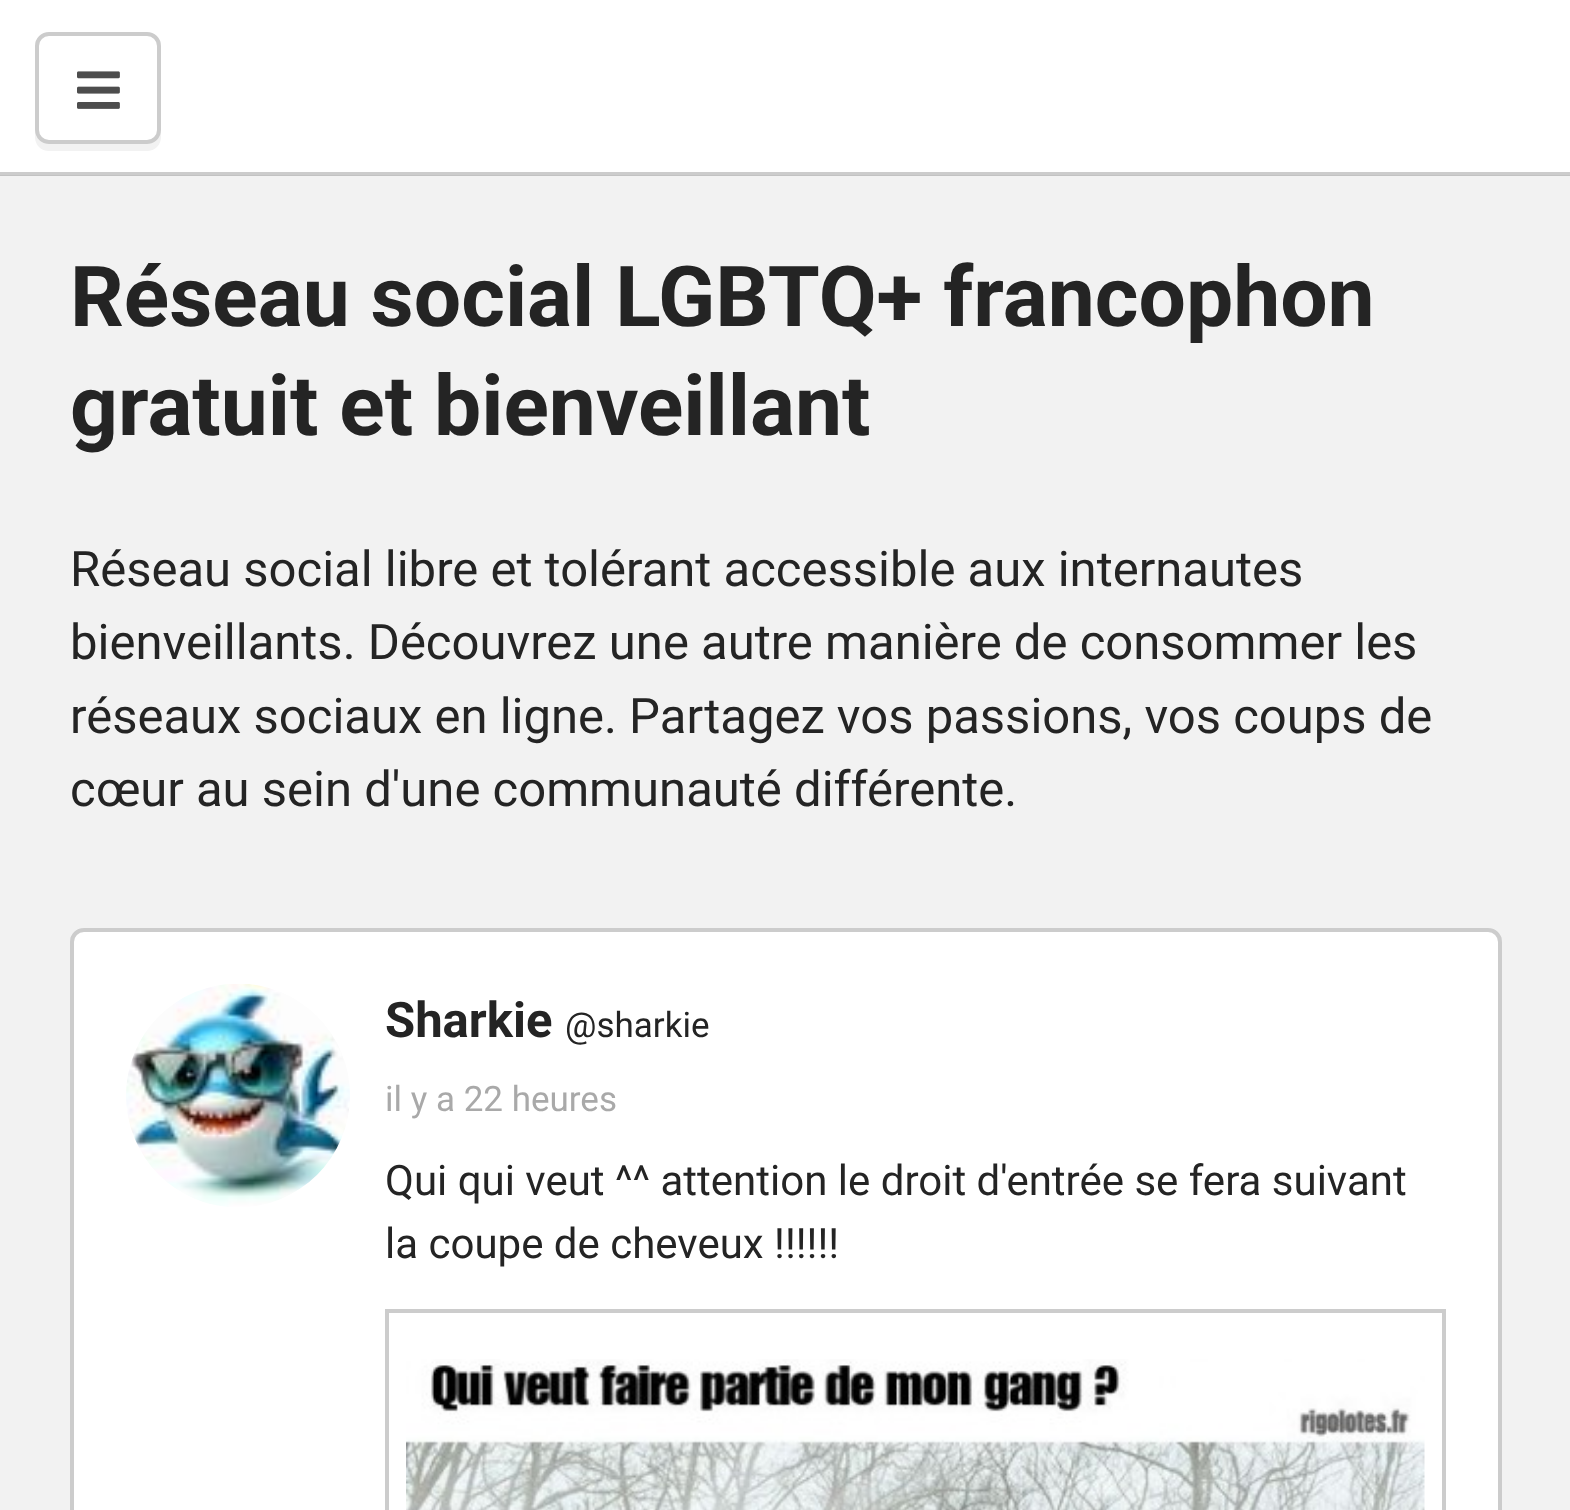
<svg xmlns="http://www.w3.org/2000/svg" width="1570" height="1510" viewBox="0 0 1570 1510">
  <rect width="100%" height="100%" fill="rgb(242,242,242)"/>
  <rect x="0" y="175" width="1570" height="1" fill="rgb(194,194,194)"/>
  <rect x="0" y="0" width="1570" height="172" fill="rgb(255,255,255)"/>
  <rect x="0" y="172" width="1570" height="3" fill="rgb(204,204,204)"/>
  <path d="M35 130V137C35 145 41 151 49 151H147C155 151 161 145 161 137V130C161 137 155 144 147 144H49C41 144 35 137 35 130Z" fill="rgb(242,242,242)"/>
  <rect x="35" y="32" width="126" height="112" rx="14" fill="rgb(255,255,255)"/>
  <rect x="37" y="34" width="122" height="108" rx="12" fill="none" stroke="rgba(0,0,0,0.2)" stroke-width="4"/>
  <image x="77" y="71" width="43" height="38" href="pic1.png"/>
  <g font-family="Roboto" font-size="84" font-weight="bold" fill="rgb(36,36,36)">
    <text>
      <tspan x="70" y="326">Réseau social LGBTQ+ francophon</tspan>
      <tspan x="70" y="435">gratuit et bienveillant</tspan>
    </text>
  </g>
  <g font-family="Roboto" font-size="49" fill="rgb(36,36,36)">
    <text>
      <tspan x="70" y="586">Réseau social libre et tolérant accessible aux internautes</tspan>
      <tspan x="70" y="659">bienveillants. Découvrez une autre manière de consommer les</tspan>
      <tspan x="70" y="733">réseaux sociaux en ligne. Partagez vos passions, vos coups de</tspan>
      <tspan x="70" y="806">cœur au sein d'une communauté différente.</tspan>
    </text>
  </g>
  <path d="M84 928H1488C1495.5 928 1502 934.5 1502 942V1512H70V942C70 934.5 76.5 928 84 928Z" fill="rgb(255,255,255)"/>
  <rect x="72" y="930" width="1428" height="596" rx="12" fill="none" stroke="rgba(0,0,0,0.2)" stroke-width="4"/>
  <image x="126" y="984" width="224" height="223" href="pic2.png"/>
  <text x="385" y="1037" font-family="Roboto" font-size="49" font-weight="bold" fill="rgb(36,36,36)">Sharkie</text>
  <text x="565" y="1037" font-family="Roboto" font-size="35" fill="rgb(36,36,36)">@sharkie</text>
  <text x="385" y="1111" font-family="Roboto" font-size="35" fill="rgb(169,169,169)">il y a 22 heures</text>
  <g font-family="Roboto" font-size="42" fill="rgb(36,36,36)">
    <text>
      <tspan x="385" y="1195">Qui qui veut ^^ attention le droit d'entrée se fera suivant</tspan>
      <tspan x="385" y="1258">la coupe de cheveux !!!!!!</tspan>
    </text>
  </g>
  <rect x="387" y="1311" width="1057" height="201" fill="none" stroke="rgb(204,204,204)" stroke-width="4"/>
  <image x="406" y="1359" width="1019" height="151" href="pic3.png"/>
</svg>
